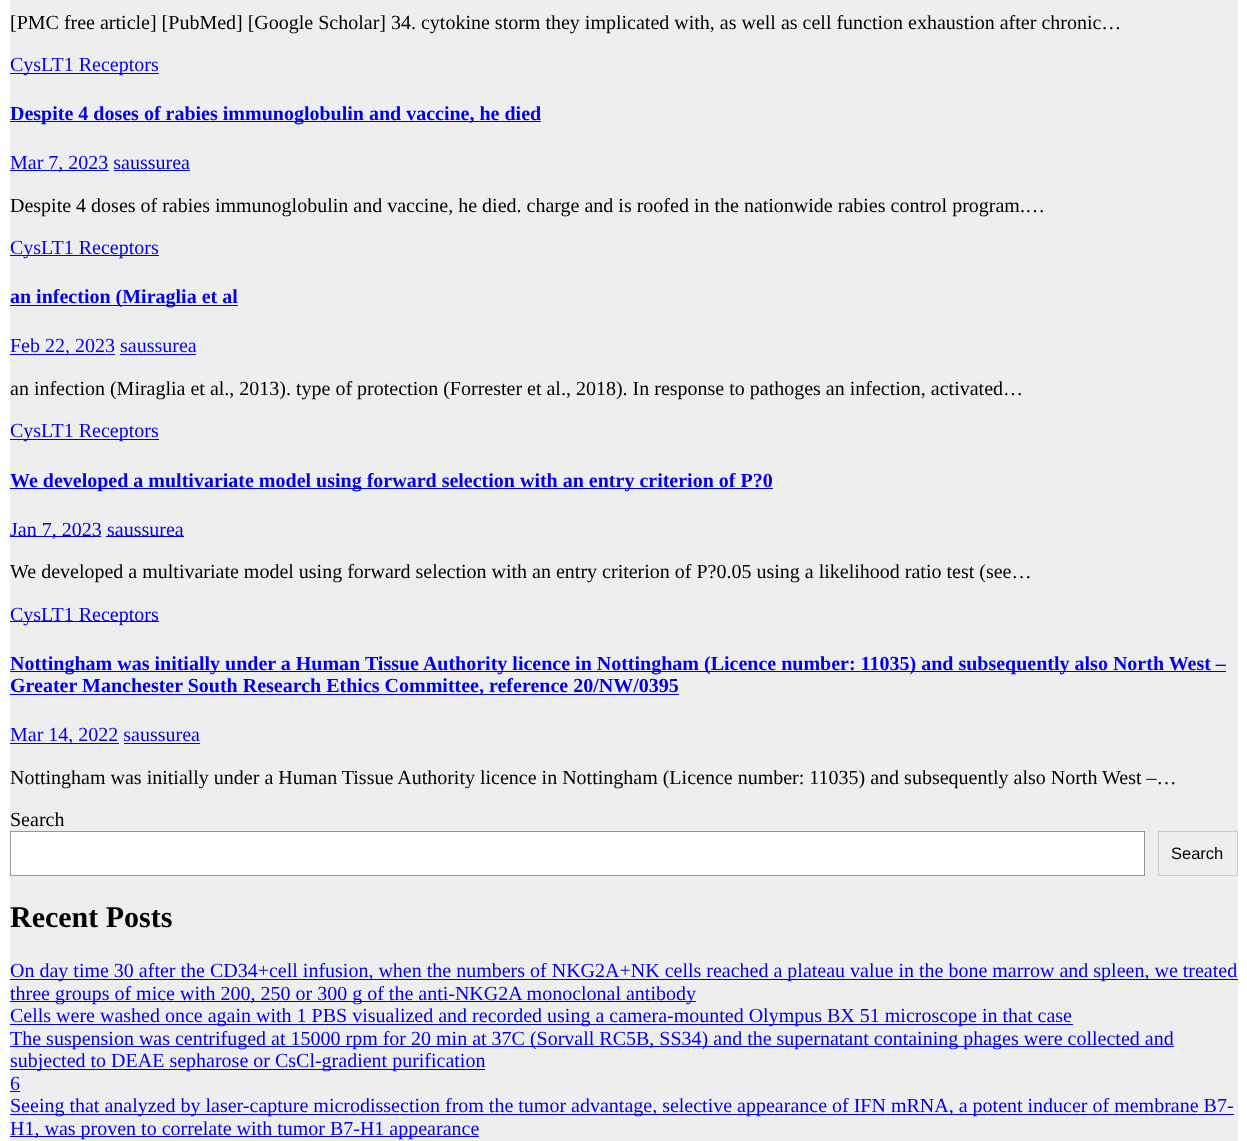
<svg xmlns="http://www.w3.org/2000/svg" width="1247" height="1141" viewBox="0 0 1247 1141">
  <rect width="100%" height="100%" fill="rgb(255,255,255)"/>
  <rect x="10" y="0" width="1228" height="1141" fill="rgb(238,238,238)"/>
  <text x="10" y="29" font-family="Liberation Serif" font-size="20" fill="rgb(0,0,0)">[PMC free article] [PubMed] [Google Scholar] 34. cytokine storm they implicated with, as well as cell function exhaustion after chronic…</text>
  <rect x="10" y="73" width="149" height="1" fill="rgb(0,0,238)"/>
  <text x="10" y="71" font-family="Liberation Serif" font-size="20" fill="rgb(0,0,238)">CysLT1 Receptors</text>
  <rect x="10" y="121" width="531" height="1" fill="rgb(0,0,238)"/>
  <text x="10" y="120" font-family="Liberation Serif" font-size="20" font-weight="bold" fill="rgb(0,0,238)">Despite 4 doses of rabies immunoglobulin and vaccine, he died</text>
  <rect x="10" y="170" width="99" height="1" fill="rgb(0,0,238)"/>
  <text x="10" y="169" font-family="Liberation Serif" font-size="20" fill="rgb(0,0,238)">Mar 7, 2023 saussurea</text>
  <rect x="114" y="170" width="76" height="1" fill="rgb(0,0,238)"/>
  <text x="10" y="212" font-family="Liberation Serif" font-size="20" fill="rgb(0,0,0)">Despite 4 doses of rabies immunoglobulin and vaccine, he died. charge and is roofed in the nationwide rabies control program.…</text>
  <rect x="10" y="255" width="149" height="1" fill="rgb(0,0,238)"/>
  <text x="10" y="254" font-family="Liberation Serif" font-size="20" fill="rgb(0,0,238)">CysLT1 Receptors</text>
  <rect x="10" y="305" width="228" height="1" fill="rgb(0,0,238)"/>
  <text x="10" y="303" font-family="Liberation Serif" font-size="20" font-weight="bold" fill="rgb(0,0,238)">an infection (Miraglia et al</text>
  <rect x="10" y="354" width="105" height="1" fill="rgb(0,0,238)"/>
  <text x="10" y="352" font-family="Liberation Serif" font-size="20" fill="rgb(0,0,238)">Feb 22, 2023 saussurea</text>
  <rect x="120" y="354" width="76" height="1" fill="rgb(0,0,238)"/>
  <text x="10" y="395" font-family="Liberation Serif" font-size="20" fill="rgb(0,0,0)">an infection (Miraglia et al., 2013). type of protection (Forrester et al., 2018). In response to pathoges an infection, activated…</text>
  <rect x="10" y="439" width="149" height="1" fill="rgb(0,0,238)"/>
  <text x="10" y="437" font-family="Liberation Serif" font-size="20" fill="rgb(0,0,238)">CysLT1 Receptors</text>
  <rect x="10" y="488" width="763" height="1" fill="rgb(0,0,238)"/>
  <text x="10" y="487" font-family="Liberation Serif" font-size="20" font-weight="bold" fill="rgb(0,0,238)">We developed a multivariate model using forward selection with an entry criterion of P?0</text>
  <rect x="10" y="536" width="91" height="1" fill="rgb(0,0,238)"/>
  <text x="10" y="536" font-family="Liberation Serif" font-size="20" fill="rgb(0,0,238)">Jan 7, 2023</text>
  <rect x="106" y="536" width="78" height="1" fill="rgb(0,0,238)"/>
  <text x="107" y="536" font-family="Liberation Serif" font-size="20" fill="rgb(0,0,238)">saussurea</text>
  <text x="10" y="578" font-family="Liberation Serif" font-size="20" fill="rgb(0,0,0)">We developed a multivariate model using forward selection with an entry criterion of P?0.05 using a likelihood ratio test (see…</text>
  <rect x="10" y="621" width="149" height="1" fill="rgb(0,0,238)"/>
  <text x="10" y="621" font-family="Liberation Serif" font-size="20" fill="rgb(0,0,238)">CysLT1 Receptors</text>
  <rect x="10" y="671" width="1216" height="1" fill="rgb(0,0,238)"/>
  <text x="10" y="670" font-family="Liberation Serif" font-size="20" font-weight="bold" fill="rgb(0,0,238)">Nottingham was initially under a Human Tissue Authority licence in Nottingham (Licence number: 11035) and subsequently also North West –</text>
  <rect x="10" y="694" width="669" height="1" fill="rgb(0,0,238)"/>
  <text x="10" y="692" font-family="Liberation Serif" font-size="20" font-weight="bold" fill="rgb(0,0,238)">Greater Manchester South Research Ethics Committee, reference 20/NW/0395</text>
  <rect x="10" y="743" width="109" height="1" fill="rgb(0,0,238)"/>
  <text x="10" y="741" font-family="Liberation Serif" font-size="20" fill="rgb(0,0,238)">Mar 14, 2022 saussurea</text>
  <rect x="124" y="743" width="76" height="1" fill="rgb(0,0,238)"/>
  <g font-family="Liberation Serif" font-size="20" fill="rgb(0,0,0)">
    <text x="10" y="784">Nottingham was initially under a Human Tissue Authority licence in Nottingham (Licence number: 11035) and subsequently also North West –…</text>
    <text x="10" y="826">Search</text>
  </g>
  <rect x="10.5" y="831.5" width="1134" height="44" fill="rgb(255,255,255)" stroke="rgb(148,148,148)"/>
  <rect x="1158.5" y="831.5" width="79" height="44" fill="none" stroke="rgb(204,204,204)"/>
  <text x="1171" y="859" font-family="Liberation Sans" font-size="16.5" fill="rgb(0,0,0)">Search</text>
  <text x="10" y="927" font-family="Liberation Serif" font-size="30" font-weight="bold" fill="rgb(0,0,0)">Recent Posts</text>
  <rect x="10" y="979" width="1228" height="1" fill="rgb(0,0,238)"/>
  <text x="10" y="977" font-family="Liberation Serif" font-size="20" fill="rgb(0,0,238)">On day time 30 after the CD34+cell infusion, when the numbers of NKG2A+NK cells reached a plateau value in the bone marrow and spleen, we treated</text>
  <rect x="10" y="1001" width="686" height="1" fill="rgb(0,0,238)"/>
  <text x="10" y="1000" font-family="Liberation Serif" font-size="20" fill="rgb(0,0,238)">three groups of mice with 200, 250 or 300 g of the anti-NKG2A monoclonal antibody</text>
  <rect x="10" y="1024" width="1063" height="1" fill="rgb(0,0,238)"/>
  <text x="10" y="1022" font-family="Liberation Serif" font-size="20" fill="rgb(0,0,238)">Cells were washed once again with 1 PBS visualized and recorded using a camera-mounted Olympus BX 51 microscope in that case</text>
  <rect x="10" y="1046" width="1164" height="1" fill="rgb(0,0,238)"/>
  <text x="10" y="1045" font-family="Liberation Serif" font-size="20" fill="rgb(0,0,238)">The suspension was centrifuged at 15000 rpm for 20 min at 37C (Sorvall RC5B, SS34) and the supernatant containing phages were collected and</text>
  <rect x="10" y="1069" width="475" height="1" fill="rgb(0,0,238)"/>
  <g font-family="Liberation Serif" font-size="20" fill="rgb(0,0,238)">
    <text>
      <tspan x="10" y="1067">subjected to DEAE sepharose or CsCl-gradient purification</tspan>
      <tspan x="10" y="1090">6</tspan>
    </text>
  </g>
  <rect x="10" y="1091" width="10" height="1" fill="rgb(0,0,238)"/>
  <rect x="10" y="1114" width="1224" height="1" fill="rgb(0,0,238)"/>
  <text x="10" y="1112" font-family="Liberation Serif" font-size="20" fill="rgb(0,0,238)">Seeing that analyzed by laser-capture microdissection from the tumor advantage, selective appearance of IFN mRNA, a potent inducer of membrane B7-</text>
  <rect x="10" y="1136" width="469" height="1" fill="rgb(0,0,238)"/>
  <text x="10" y="1135" font-family="Liberation Serif" font-size="20" fill="rgb(0,0,238)">H1, was proven to correlate with tumor B7-H1 appearance</text>
</svg>
